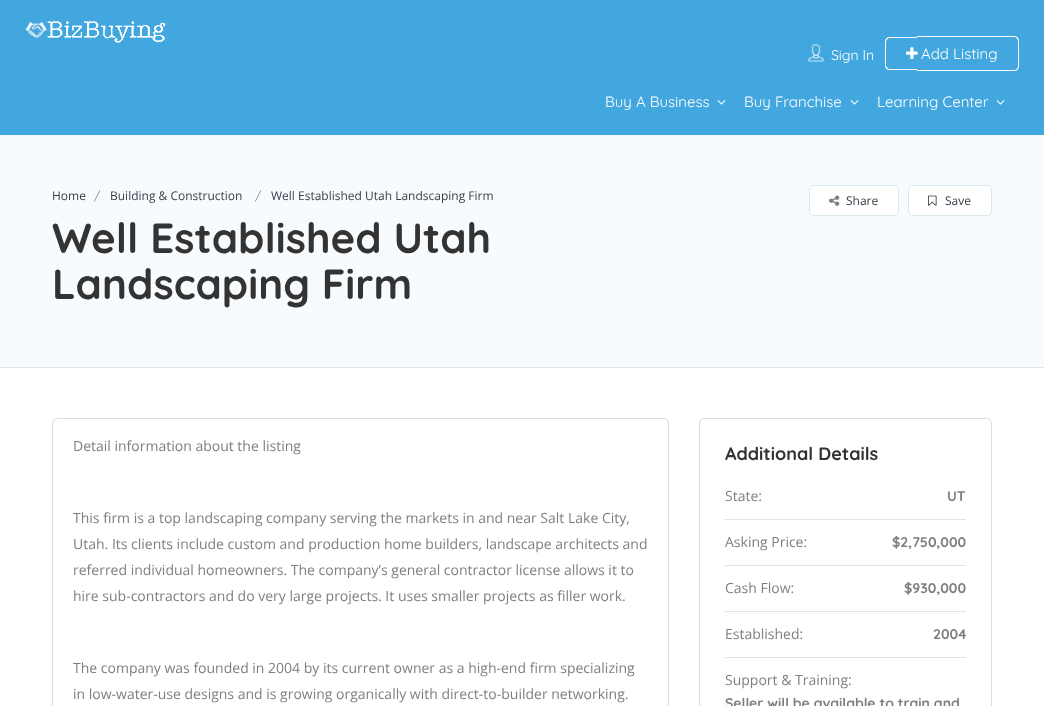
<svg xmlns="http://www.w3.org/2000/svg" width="1044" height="706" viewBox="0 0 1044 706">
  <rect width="100%" height="100%" fill="rgb(247,251,254)"/>
  <rect x="0" y="0" width="1044" height="135" fill="rgb(66,167,223)"/>
  <image x="25" y="21" width="141" height="22" href="pic1.png"/>
  <image x="808" y="43" width="16" height="19" href="pic2.png"/>
  <text x="831" y="60" font-family="Quicksand" font-size="14" fill="rgb(255,255,255)">Sign In</text>
  <path d="M890 37H917V70H890C887 70 885 68 885 65V42C885 39 887 37 890 37ZM890 38H917V69H890C888 69 886 67 886 65V42C886 40 888 38 890 38Z" fill="rgb(255,255,255)" fill-rule="evenodd"/>
  <path d="M917 36H1014C1017 36 1019 38 1019 41V66C1019 69 1017 71 1014 71H917ZM917 37H1014C1016 37 1018 39 1018 41V66C1018 68 1016 70 1014 70H917Z" fill="rgb(255,255,255)" fill-rule="evenodd"/>
  <image x="906" y="47" width="12" height="12" href="pic3.png"/>
  <g font-family="Quicksand" font-size="15" fill="rgb(255,255,255)">
    <text x="921" y="59">Add Listing</text>
    <text x="605" y="107">Buy A Business</text>
  </g>
  <image x="717" y="100" width="9" height="5" href="pic4.png"/>
  <text x="744" y="107" font-family="Quicksand" font-size="15" fill="rgb(255,255,255)">Buy Franchise</text>
  <image x="850" y="100" width="9" height="5" href="pic4.png"/>
  <text x="877" y="107" font-family="Quicksand" font-size="15" fill="rgb(255,255,255)">Learning Center</text>
  <image x="996" y="100" width="9" height="5" href="pic4.png"/>
  <rect x="0" y="367" width="1044" height="1" fill="rgb(219,231,239)"/>
  <text x="52" y="200" font-family="Open Sans" font-size="12" fill="rgb(54,63,72)">Home</text>
  <text x="94" y="200" font-family="Quicksand" font-size="12" fill="rgb(127,127,127)">/</text>
  <text x="110" y="200" font-family="Open Sans" font-size="12" fill="rgb(54,63,72)">Building &amp; Construction</text>
  <text x="255" y="200" font-family="Quicksand" font-size="12" fill="rgb(127,127,127)">/</text>
  <text x="271" y="200" font-family="Open Sans" font-size="12" fill="rgb(54,63,72)">Well Established Utah Landscaping Firm</text>
  <g font-family="Quicksand" font-size="42" font-weight="bold" fill="rgb(51,51,51)">
    <text>
      <tspan x="52" y="253">Well Established Utah</tspan>
      <tspan x="52" y="299">Landscaping Firm</tspan>
    </text>
  </g>
  <rect x="809.5" y="185.5" width="89" height="30" rx="4.5" fill="rgb(255,255,255)" stroke="rgb(219,231,239)"/>
  <image x="829" y="195" width="11" height="11" href="pic5.png"/>
  <text x="846" y="205" font-family="Open Sans" font-size="12" fill="rgb(54,63,72)">Share</text>
  <rect x="908.5" y="185.5" width="83" height="30" rx="4.5" fill="rgb(255,255,255)" stroke="rgb(219,231,239)"/>
  <image x="928" y="195" width="9" height="11" href="pic6.png"/>
  <text x="945" y="205" font-family="Open Sans" font-size="12" fill="rgb(54,63,72)">Save</text>
  <rect x="0" y="368" width="1044" height="338" fill="rgb(255,255,255)"/>
  <rect x="52.5" y="418.5" width="616" height="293" rx="4.5" fill="none" stroke="rgb(222,222,222)"/>
  <g font-family="Open Sans" font-size="14" fill="rgb(127,127,127)">
    <text x="73" y="451">Detail information about the listing</text>
    <text>
      <tspan x="73" y="523">This firm is a top landscaping company serving the markets in and near Salt Lake City,</tspan>
      <tspan x="73" y="549">Utah. Its clients include custom and production home builders, landscape architects and</tspan>
      <tspan x="73" y="575">referred individual homeowners. The company’s general contractor license allows it to</tspan>
      <tspan x="73" y="601">hire sub-contractors and do very large projects. It uses smaller projects as filler work.</tspan>
    </text>
    <text>
      <tspan x="73" y="673">The company was founded in 2004 by its current owner as a high-end firm specializing</tspan>
      <tspan x="73" y="699">in low-water-use designs and is growing organically with direct-to-builder networking.</tspan>
    </text>
  </g>
  <rect x="699.5" y="418.5" width="292" height="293" rx="4.5" fill="none" stroke="rgb(222,222,222)"/>
  <text x="725" y="460" font-family="Quicksand" font-size="18" font-weight="bold" fill="rgb(51,51,51)">Additional Details</text>
  <rect x="725" y="519" width="241" height="1" fill="rgb(227,227,227)"/>
  <text x="725" y="501" font-family="Open Sans" font-size="14" fill="rgb(127,127,127)">State:</text>
  <text x="947" y="501" font-family="Quicksand" font-size="14" font-weight="bold" fill="rgb(127,127,127)">UT</text>
  <rect x="725" y="565" width="241" height="1" fill="rgb(227,227,227)"/>
  <text x="725" y="547" font-family="Open Sans" font-size="14" fill="rgb(127,127,127)">Asking Price:</text>
  <text x="892" y="547" font-family="Quicksand" font-size="14" font-weight="bold" fill="rgb(127,127,127)">$2,750,000</text>
  <rect x="725" y="611" width="241" height="1" fill="rgb(227,227,227)"/>
  <text x="725" y="593" font-family="Open Sans" font-size="14" fill="rgb(127,127,127)">Cash Flow:</text>
  <text x="904" y="593" font-family="Quicksand" font-size="14" font-weight="bold" fill="rgb(127,127,127)">$930,000</text>
  <rect x="725" y="657" width="241" height="1" fill="rgb(227,227,227)"/>
  <text x="725" y="639" font-family="Open Sans" font-size="14" fill="rgb(127,127,127)">Established:</text>
  <text x="933" y="639" font-family="Quicksand" font-size="14" font-weight="bold" fill="rgb(127,127,127)">2004</text>
  <text x="725" y="685" font-family="Open Sans" font-size="14" fill="rgb(127,127,127)">Support &amp; Training:</text>
  <text x="725" y="708" font-family="Quicksand" font-size="14" font-weight="bold" fill="rgb(127,127,127)">Seller will be available to train and</text>
</svg>
